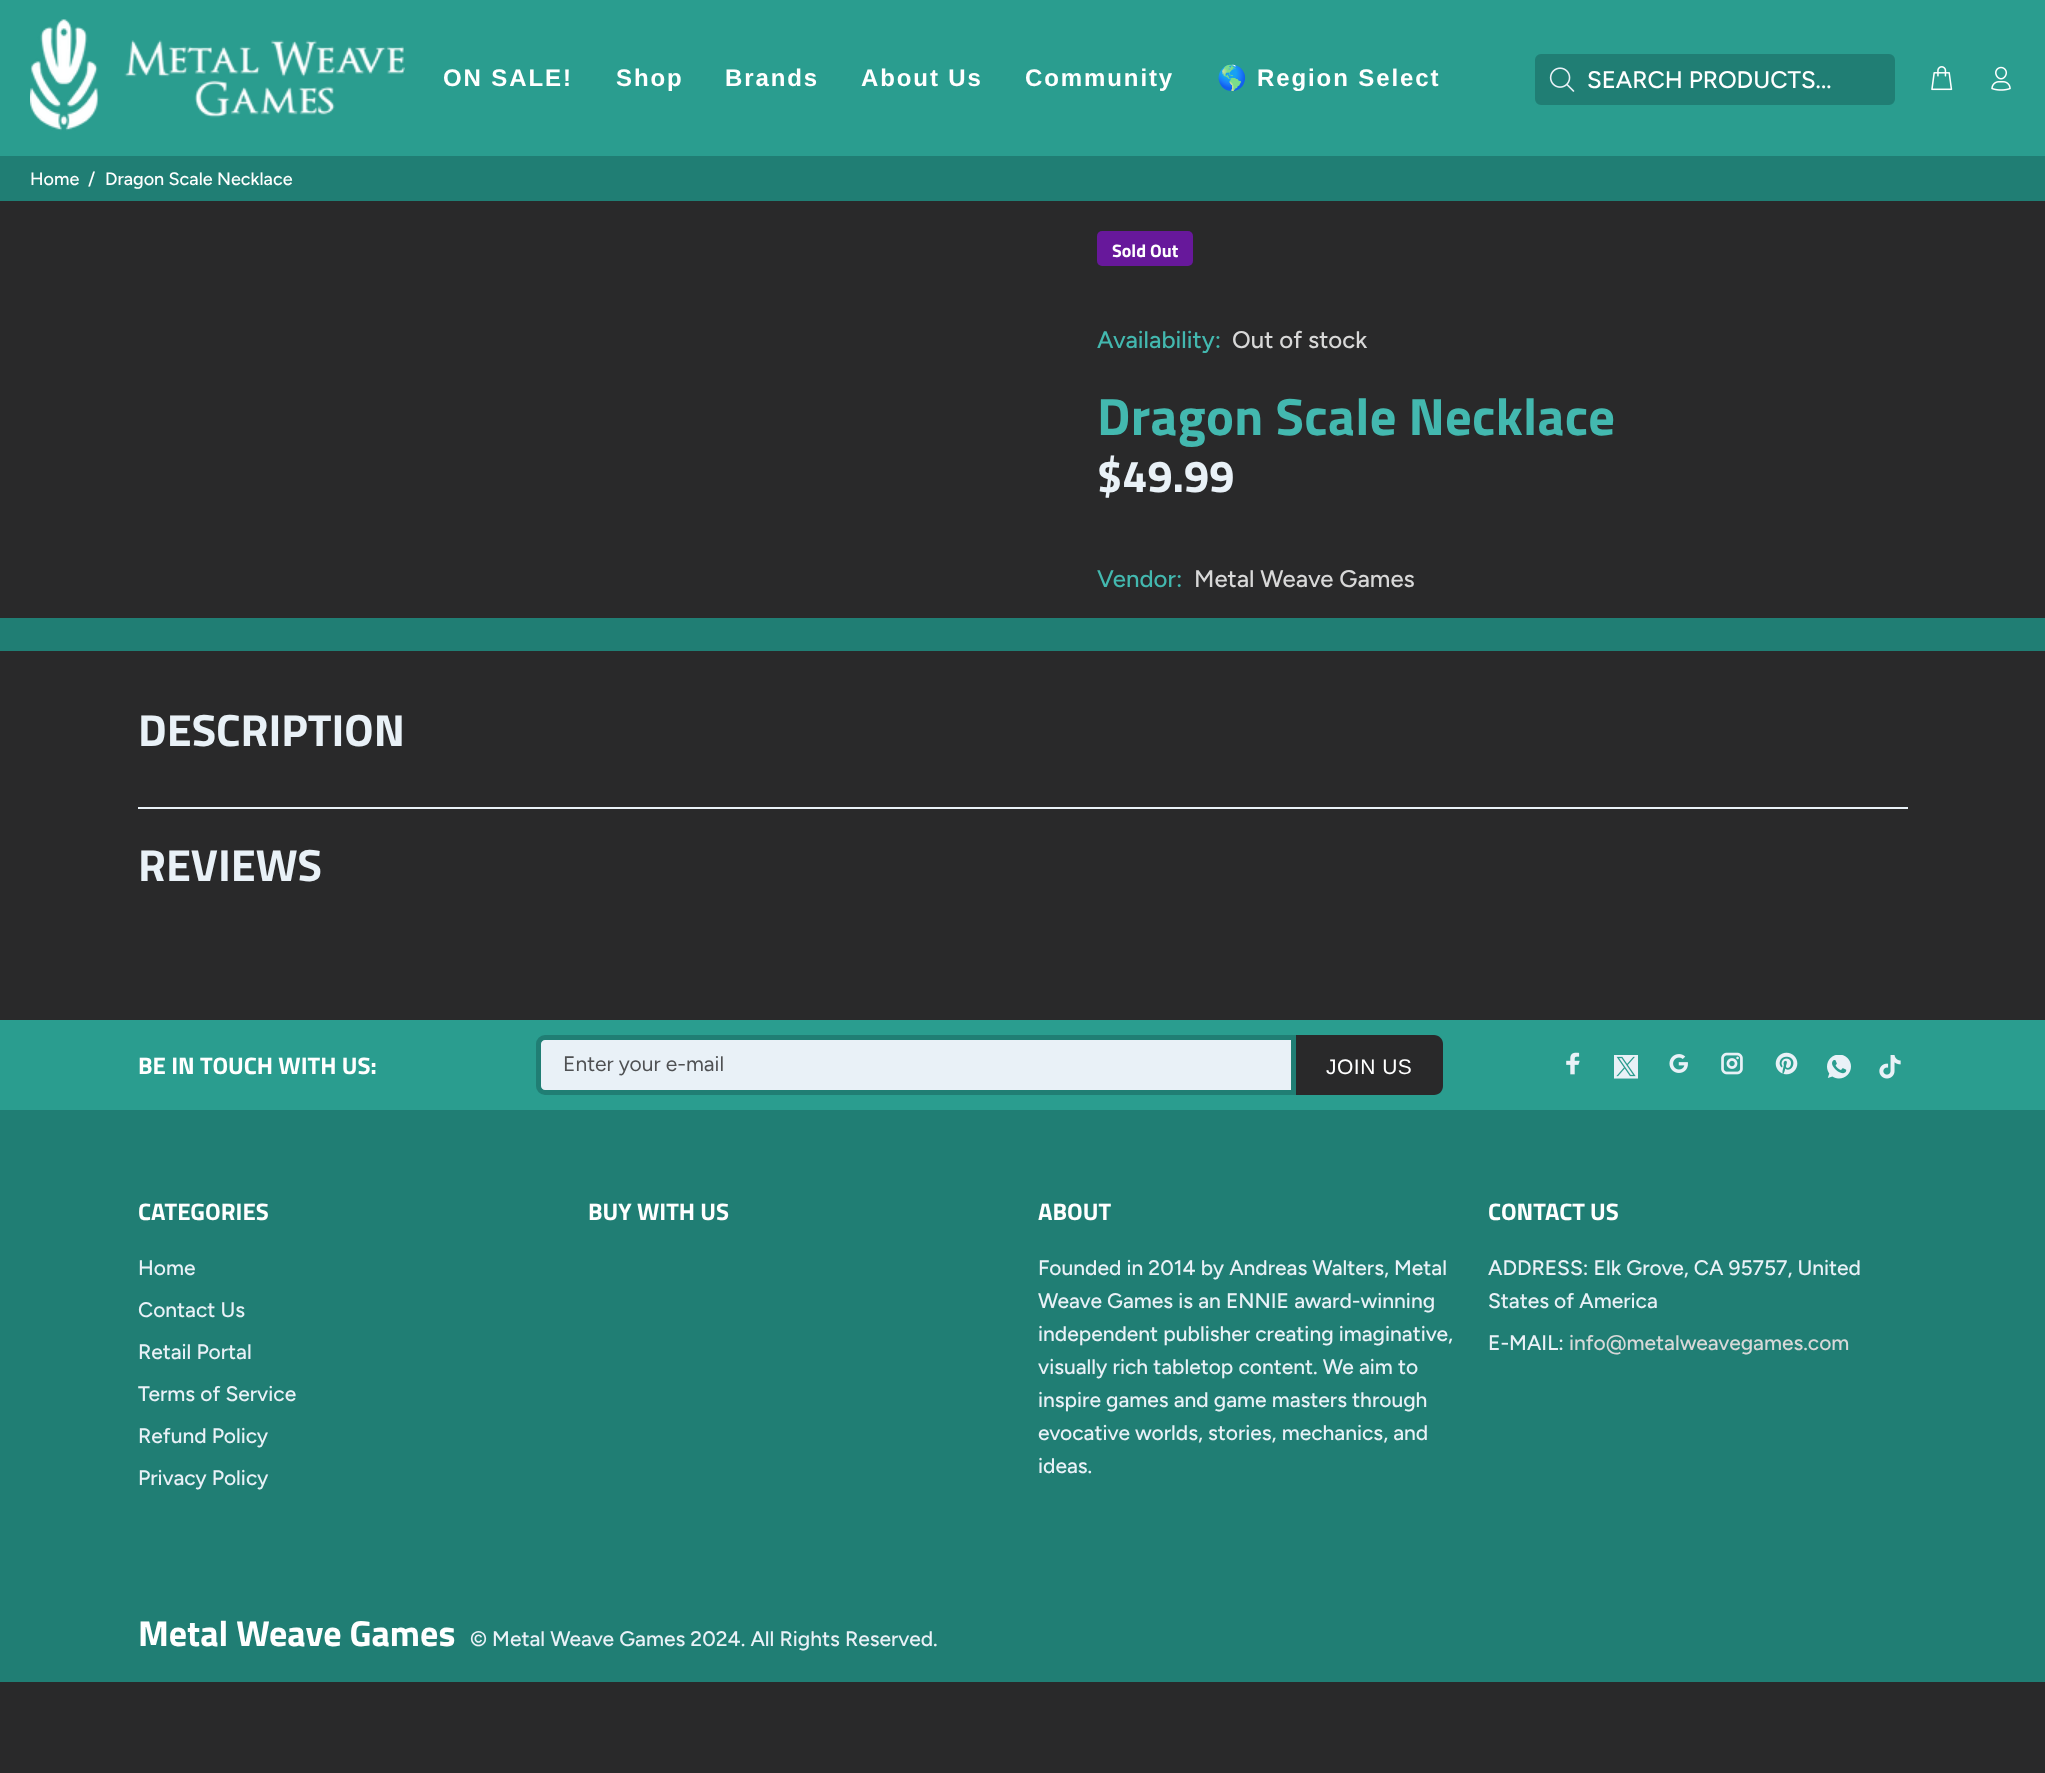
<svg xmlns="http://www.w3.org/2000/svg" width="2045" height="1773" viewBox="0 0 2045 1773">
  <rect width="100%" height="100%" fill="rgb(41,41,42)"/>
  <rect x="0" y="0" width="2045" height="156" fill="rgb(42,157,143)"/>
  <image x="30" y="19" width="375" height="112" href="pic1.png"/>
  <g font-family="Liberation Sans" font-size="24" font-weight="bold" letter-spacing="1.9" fill="rgb(255,255,255)">
    <text x="443" y="86">ON SALE!</text>
    <text x="616" y="86">Shop</text>
    <text x="725" y="86">Brands</text>
    <text x="861" y="86">About Us</text>
    <text x="1025" y="86">Community</text>
  </g>
  <text x="1217" y="86" font-family="Noto Color Emoji" font-size="24" font-weight="bold" letter-spacing="1.9" fill="rgb(255,255,255)">🌎</text>
  <text x="1257" y="86" font-family="Liberation Sans" font-size="24" font-weight="bold" letter-spacing="1.9" fill="rgb(255,255,255)">Region Select</text>
  <rect x="1536" y="55" width="358" height="49" rx="5" fill="rgb(32,126,116)" stroke="rgb(32,126,116)" stroke-width="2"/>
  <image x="1549" y="67" width="26" height="25" href="pic2.png"/>
  <text x="1587" y="88" font-family="Figtree" font-size="24" font-weight="500" fill="rgb(255,255,255)">SEARCH PRODUCTS...</text>
  <image x="1931" y="66" width="22" height="25" href="pic3.png"/>
  <image x="1991" y="66" width="20" height="25" href="pic4.png"/>
  <rect x="0" y="156" width="2045" height="45" fill="rgb(32,126,116)"/>
  <g font-family="Figtree" font-size="18" font-weight="500" fill="rgb(255,255,255)">
    <text x="30" y="185">Home</text>
    <text x="88" y="185">/</text>
    <text x="105" y="185">Dragon Scale Necklace</text>
  </g>
  <rect x="1097" y="231" width="96" height="35" rx="5" fill="rgb(103,24,155)"/>
  <text x="1112" y="257" font-family="Titillium Web" font-size="18" font-weight="bold" fill="rgb(255,255,255)">Sold Out</text>
  <text x="1097" y="348" font-family="Figtree" font-size="24" font-weight="500" fill="rgb(67,184,175)">Availability:</text>
  <text x="1232" y="348" font-family="Figtree" font-size="24" font-weight="500" fill="rgb(216,216,216)">Out of stock</text>
  <text x="1097" y="435" font-family="Titillium Web" font-size="52.5" font-weight="bold" letter-spacing="0.3" fill="rgb(67,184,175)">Dragon Scale Necklace</text>
  <text x="1097" y="492" font-family="Titillium Web" font-size="45" font-weight="bold" fill="rgb(233,241,247)">$49.99</text>
  <text x="1097" y="587" font-family="Figtree" font-size="24" font-weight="500" fill="rgb(67,184,175)">Vendor:</text>
  <text x="1194" y="587" font-family="Figtree" font-size="24" font-weight="500" fill="rgb(216,216,216)">Metal Weave Games</text>
  <rect x="0" y="618" width="2045" height="33" fill="rgb(32,126,116)"/>
  <rect x="138" y="807" width="1770" height="2" fill="rgb(233,241,247)"/>
  <g font-family="Titillium Web" font-size="45" font-weight="bold" fill="rgb(233,241,247)">
    <text x="138" y="746">DESCRIPTION</text>
    <text x="138" y="881">REVIEWS</text>
  </g>
  <rect x="0" y="1110" width="2045" height="572" fill="rgb(32,126,116)"/>
  <rect x="0" y="1020" width="2045" height="90" fill="rgb(42,157,143)"/>
  <text x="138" y="1074" font-family="Titillium Web" font-size="24" font-weight="bold" fill="rgb(255,255,255)">BE IN TOUCH WITH US:</text>
  <path d="M545 1037.5H1293.5V1092.5H545C541.5 1092.5 538.5 1089.5 538.5 1086V1044C538.5 1040.5 541.5 1037.5 545 1037.5Z" fill="rgb(233,241,247)" stroke="rgb(32,126,116)" stroke-width="5"/>
  <text x="563" y="1071" font-family="Figtree" font-size="21" fill="rgb(79,81,83)">Enter your e-mail</text>
  <path d="M1296 1035H1434C1439 1035 1443 1039 1443 1044V1086C1443 1091 1439 1095 1434 1095H1296Z" fill="rgb(41,41,42)"/>
  <text x="1326" y="1074" font-family="Liberation Sans" font-size="21" letter-spacing="0.5" fill="rgb(255,255,255)">JOIN US</text>
  <image x="1566" y="1052" width="14" height="23" href="pic5.png"/>
  <image x="1614" y="1055" width="24" height="24" href="pic6.png"/>
  <image x="1669" y="1054" width="19" height="19" href="pic7.png"/>
  <image x="1721" y="1052" width="22" height="23" href="pic8.png"/>
  <image x="1775" y="1052" width="23" height="23" href="pic9.png"/>
  <image x="1827" y="1055" width="24" height="24" href="pic10.png"/>
  <image x="1879" y="1055" width="22" height="24" href="pic11.png"/>
  <text x="138" y="1220" font-family="Titillium Web" font-size="24" font-weight="bold" fill="rgb(255,255,255)">CATEGORIES</text>
  <g font-family="Figtree" font-size="21" font-weight="500" fill="rgb(233,241,247)">
    <text x="138" y="1275">Home</text>
    <text x="138" y="1317">Contact Us</text>
    <text x="138" y="1359">Retail Portal</text>
    <text x="138" y="1401">Terms of Service</text>
    <text x="138" y="1443">Refund Policy</text>
    <text x="138" y="1485">Privacy Policy</text>
  </g>
  <g font-family="Titillium Web" font-size="24" font-weight="bold" fill="rgb(255,255,255)">
    <text x="588" y="1220">BUY WITH US</text>
    <text x="1038" y="1220">ABOUT</text>
  </g>
  <g font-family="Figtree" font-size="21" font-weight="500" fill="rgb(233,241,247)">
    <text>
      <tspan x="1038" y="1275">Founded in 2014 by Andreas Walters, Metal</tspan>
      <tspan x="1038" y="1308">Weave Games is an ENNIE award-winning</tspan>
      <tspan x="1038" y="1341">independent publisher creating imaginative,</tspan>
      <tspan x="1038" y="1374">visually rich tabletop content. We aim to</tspan>
      <tspan x="1038" y="1407">inspire games and game masters through</tspan>
      <tspan x="1038" y="1440">evocative worlds, stories, mechanics, and</tspan>
      <tspan x="1038" y="1473">ideas.</tspan>
    </text>
  </g>
  <text x="1488" y="1220" font-family="Titillium Web" font-size="24" font-weight="bold" fill="rgb(255,255,255)">CONTACT US</text>
  <g font-family="Figtree" font-size="21" font-weight="500" fill="rgb(233,241,247)">
    <text>
      <tspan x="1488" y="1275">ADDRESS: Elk Grove, CA 95757, United</tspan>
      <tspan x="1488" y="1308">States of America</tspan>
    </text>
    <text x="1488" y="1350">E-MAIL:</text>
  </g>
  <text x="1569" y="1350" font-family="Figtree" font-size="21" font-weight="500" fill="rgb(216,216,216)">info@metalweavegames.com</text>
  <text x="138" y="1646" font-family="Titillium Web" font-size="36" font-weight="bold" fill="rgb(255,255,255)">Metal Weave Games</text>
  <text x="470" y="1646" font-family="Figtree" font-size="21" font-weight="500" fill="rgb(233,241,247)">© Metal Weave Games 2024. All Rights Reserved.</text>
</svg>
